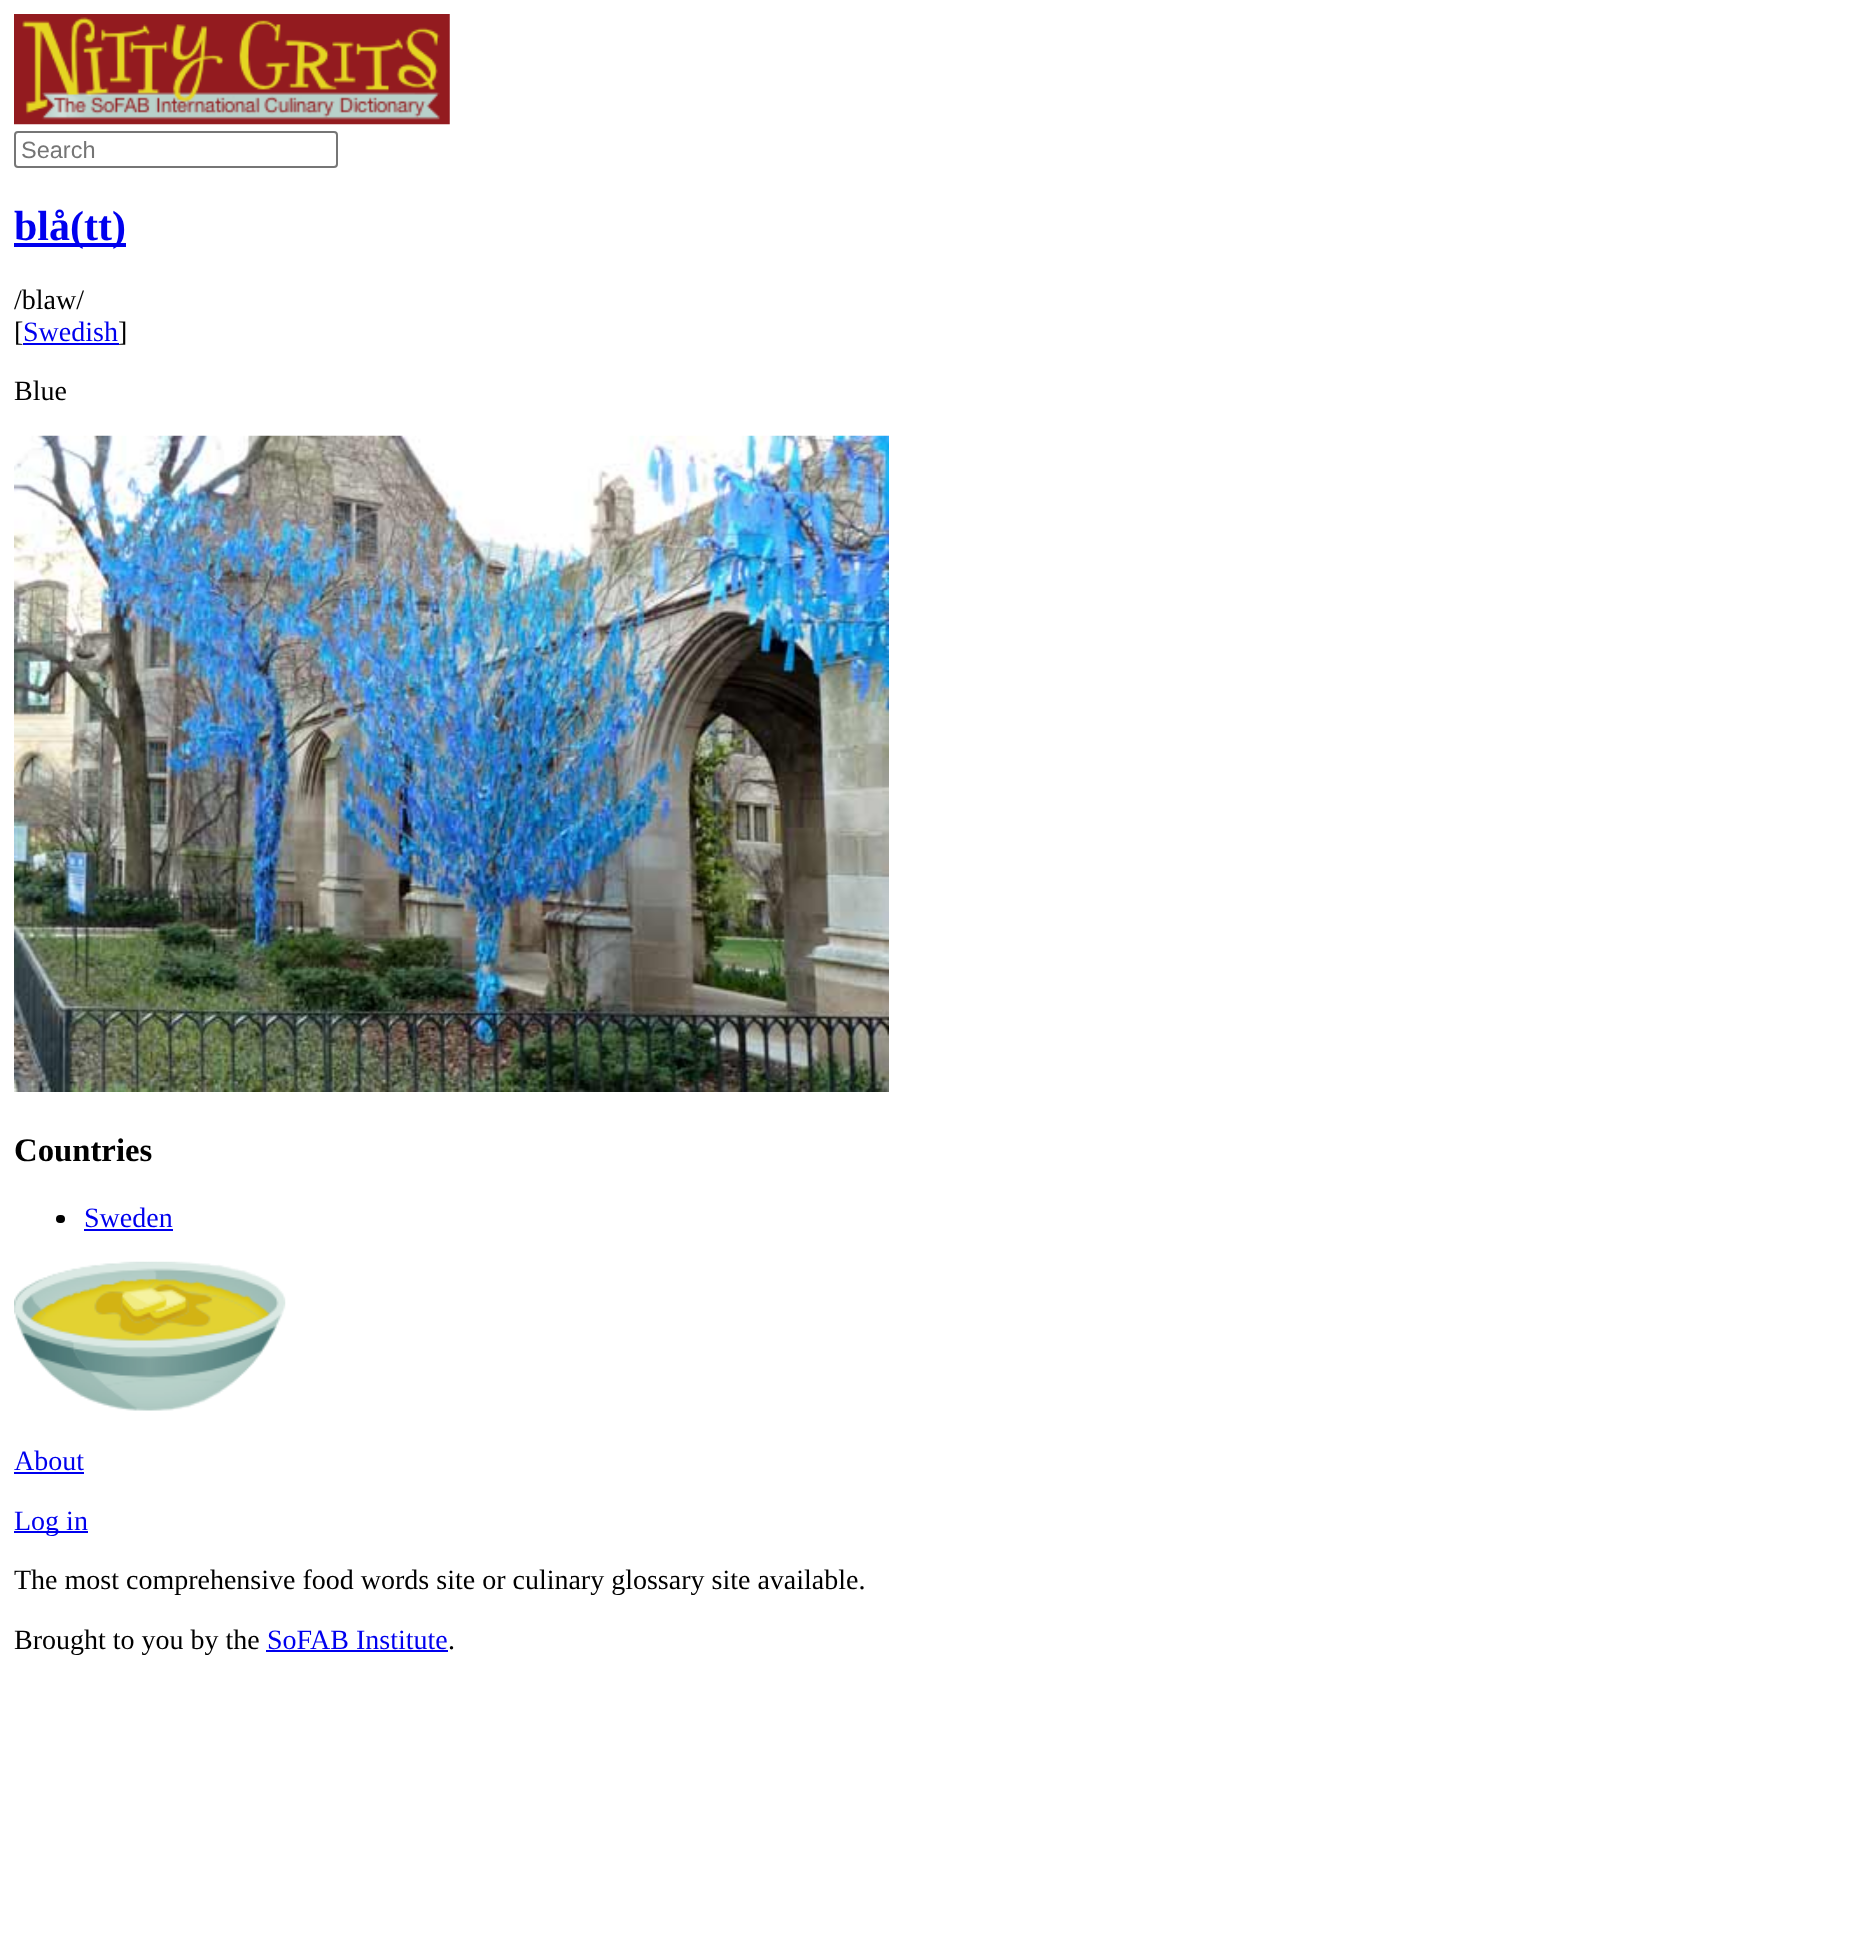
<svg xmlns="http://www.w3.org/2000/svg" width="1872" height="1957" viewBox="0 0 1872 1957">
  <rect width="100%" height="100%" fill="rgb(255,255,255)"/>
  <image x="14" y="14" width="436" height="111" href="pic1.png"/>
  <rect x="15" y="132" width="322" height="35" rx="3" fill="none" stroke="rgb(118,118,118)" stroke-width="2"/>
  <text x="21" y="158" font-family="Liberation Sans" font-size="23.5" fill="rgb(117,117,117)">Search</text>
  <rect x="14" y="243" width="112" height="4" fill="rgb(0,0,238)"/>
  <text x="14" y="240" font-family="Liberation Serif" font-size="42" font-weight="bold" fill="rgb(0,0,238)">blå(tt)</text>
  <g font-family="Liberation Serif" font-size="28" fill="rgb(0,0,0)">
    <text>
      <tspan x="14" y="309">/blaw/</tspan>
      <tspan x="14" y="341">[</tspan>
    </text>
  </g>
  <rect x="23" y="343" width="96" height="2" fill="rgb(0,0,238)"/>
  <text x="23" y="341" font-family="Liberation Serif" font-size="28" fill="rgb(0,0,238)">Swedish</text>
  <g font-family="Liberation Serif" font-size="28" fill="rgb(0,0,0)">
    <text x="118" y="341">]</text>
    <text x="14" y="400">Blue</text>
  </g>
  <image x="14" y="435" width="875" height="657" href="pic2.png"/>
  <text x="14" y="1161" font-family="Liberation Serif" font-size="32.75" font-weight="bold" fill="rgb(0,0,0)">Countries</text>
  <rect x="56" y="1215" width="9" height="8" rx="4" fill="rgb(0,0,0)"/>
  <text x="84" y="1227" font-family="Liberation Serif" font-size="28" fill="rgb(0,0,238)">Sweden</text>
  <rect x="84" y="1229" width="89" height="2" fill="rgb(0,0,238)"/>
  <image x="14" y="1261" width="272" height="150" href="pic3.png"/>
  <text x="14" y="1470" font-family="Liberation Serif" font-size="28" fill="rgb(0,0,238)">About</text>
  <rect x="14" y="1472" width="70" height="2" fill="rgb(0,0,238)"/>
  <rect x="14" y="1531" width="74" height="2" fill="rgb(0,0,238)"/>
  <text x="14" y="1530" font-family="Liberation Serif" font-size="28" fill="rgb(0,0,238)">Log in</text>
  <g font-family="Liberation Serif" font-size="28" fill="rgb(0,0,0)">
    <text x="14" y="1589">The most comprehensive food words site or culinary glossary site available.</text>
    <text x="14" y="1649">Brought to you by the</text>
  </g>
  <text x="267" y="1649" font-family="Liberation Serif" font-size="28" fill="rgb(0,0,238)">SoFAB Institute</text>
  <rect x="266" y="1650" width="182" height="2" fill="rgb(0,0,238)"/>
  <text x="448" y="1649" font-family="Liberation Serif" font-size="28" fill="rgb(0,0,0)">.</text>
</svg>
